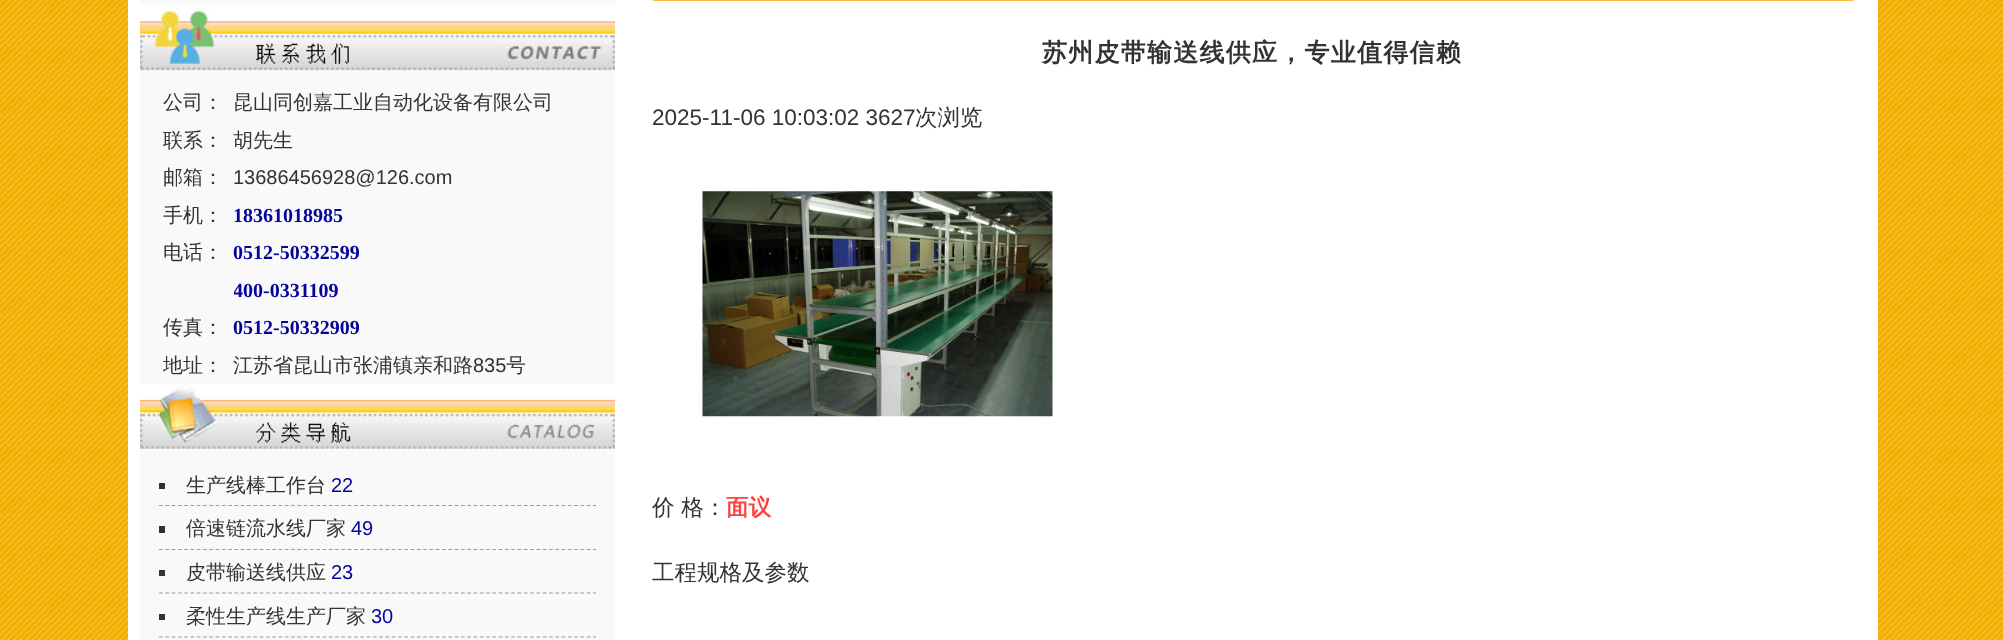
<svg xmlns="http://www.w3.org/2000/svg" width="2003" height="640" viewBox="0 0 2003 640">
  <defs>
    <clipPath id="clip1"><rect x="234" y="234" width="194" height="75"/></clipPath>
  </defs>
  <rect width="100%" height="100%" fill="rgb(255,255,255)"/>
  <image x="0" y="0" width="2003" height="640" href="pic1.png"/>
  <rect x="128" y="0" width="1750" height="640" fill="rgb(255,255,255)"/>
  <rect x="140" y="0" width="475" height="640" fill="rgb(249,249,249)"/>
  <image x="140" y="5" width="475" height="66" href="pic2.png"/>
  <g font-family="WenQuanYi Zen Hei" font-size="20" font-weight="500" fill="rgb(51,51,51)">
    <text x="163" y="109">公司：</text>
    <text x="233" y="109">昆山同创嘉工业自动化设备有限公司</text>
    <text x="163" y="147">联系：</text>
    <text x="233" y="147">胡先生</text>
    <text x="163" y="184">邮箱：</text>
  </g>
  <text x="233" y="184" font-family="Liberation Sans" font-size="20" fill="rgb(51,51,51)">13686456928@126.com</text>
  <text x="163" y="222" font-family="WenQuanYi Zen Hei" font-size="20" font-weight="500" fill="rgb(51,51,51)">手机：</text>
  <text x="233" y="222" font-family="Liberation Serif" font-size="20" font-weight="bold" fill="rgb(4,4,156)">18361018985</text>
  <text x="163" y="259" font-family="WenQuanYi Zen Hei" font-size="20" font-weight="500" fill="rgb(51,51,51)">电话：</text>
  <text x="233" y="259" font-family="Liberation Serif" font-size="20" font-weight="bold" fill="rgb(4,4,156)">0512-50332599</text>
  <g clip-path="url(#clip1)">
    <text x="233" y="297" font-family="Liberation Serif" font-size="20" font-weight="bold" fill="rgb(4,4,156)">400-0331109</text>
  </g>
  <text x="163" y="334" font-family="WenQuanYi Zen Hei" font-size="20" font-weight="500" fill="rgb(51,51,51)">传真：</text>
  <text x="233" y="334" font-family="Liberation Serif" font-size="20" font-weight="bold" fill="rgb(4,4,156)">0512-50332909</text>
  <g font-family="WenQuanYi Zen Hei" font-size="20" font-weight="500" fill="rgb(51,51,51)">
    <text x="163" y="372">地址：</text>
    <text x="233" y="372">江苏省昆山市张浦镇亲和路</text>
  </g>
  <text x="473" y="372" font-family="Liberation Sans" font-size="20" fill="rgb(51,51,51)">835</text>
  <text x="506" y="372" font-family="WenQuanYi Zen Hei" font-size="20" font-weight="500" fill="rgb(51,51,51)">号</text>
  <image x="140" y="384" width="475" height="66" href="pic3.png"/>
  <path d="M159 505.5H596" fill="none" stroke="rgb(153,153,153)" stroke-width="1.2" stroke-dasharray="3.75 2.54"/>
  <rect x="159" y="483" width="6" height="6" fill="rgb(51,51,51)"/>
  <text x="186" y="492" font-family="WenQuanYi Zen Hei" font-size="20" font-weight="500" fill="rgb(51,51,51)">生产线棒工作台</text>
  <text x="331" y="492" font-family="Liberation Sans" font-size="20" fill="rgb(4,4,156)">22</text>
  <path d="M159 549.5H596" fill="none" stroke="rgb(153,153,153)" stroke-width="1.2" stroke-dasharray="3.75 2.54"/>
  <rect x="159" y="526" width="6" height="7" fill="rgb(51,51,51)"/>
  <text x="186" y="535" font-family="WenQuanYi Zen Hei" font-size="20" font-weight="500" fill="rgb(51,51,51)">倍速链流水线厂家</text>
  <text x="351" y="535" font-family="Liberation Sans" font-size="20" fill="rgb(4,4,156)">49</text>
  <path d="M159 593H596" fill="none" stroke="rgb(153,153,153)" stroke-width="1.2" stroke-dasharray="3.75 2.54"/>
  <rect x="159" y="570" width="6" height="6" fill="rgb(51,51,51)"/>
  <text x="186" y="579" font-family="WenQuanYi Zen Hei" font-size="20" font-weight="500" fill="rgb(51,51,51)">皮带输送线供应</text>
  <text x="331" y="579" font-family="Liberation Sans" font-size="20" fill="rgb(4,4,156)">23</text>
  <path d="M159 637H596" fill="none" stroke="rgb(153,153,153)" stroke-width="1.2" stroke-dasharray="3.75 2.54"/>
  <rect x="159" y="614" width="6" height="6" fill="rgb(51,51,51)"/>
  <text x="186" y="623" font-family="WenQuanYi Zen Hei" font-size="20" font-weight="500" fill="rgb(51,51,51)">柔性生产线生产厂家</text>
  <text x="371" y="623" font-family="Liberation Sans" font-size="20" fill="rgb(4,4,156)">30</text>
  <rect x="653" y="0" width="1200" height="1" fill="rgb(255,187,66)"/>
  <text x="1042" y="61" font-family="WenQuanYi Zen Hei" font-size="25" font-weight="bold" letter-spacing="1.25" fill="rgb(51,51,51)">苏州皮带输送线供应，专业值得信赖</text>
  <text x="652" y="125" font-family="Liberation Sans" font-size="22.5" fill="rgb(51,51,51)">2025-11-06 10:03:02 3627</text>
  <text x="915" y="125" font-family="WenQuanYi Zen Hei" font-size="22.5" font-weight="500" fill="rgb(51,51,51)">次浏览</text>
  <image x="702" y="191" width="351" height="226" href="pic4.png"/>
  <text x="652" y="515" font-family="WenQuanYi Zen Hei" font-size="22.5" font-weight="500" fill="rgb(51,51,51)">价 格：</text>
  <text x="726" y="515" font-family="WenQuanYi Zen Hei" font-size="22.5" font-weight="bold" fill="rgb(255,64,64)">面议</text>
  <text x="652" y="580" font-family="WenQuanYi Zen Hei" font-size="22.5" font-weight="500" fill="rgb(51,51,51)">工程规格及参数</text>
</svg>
